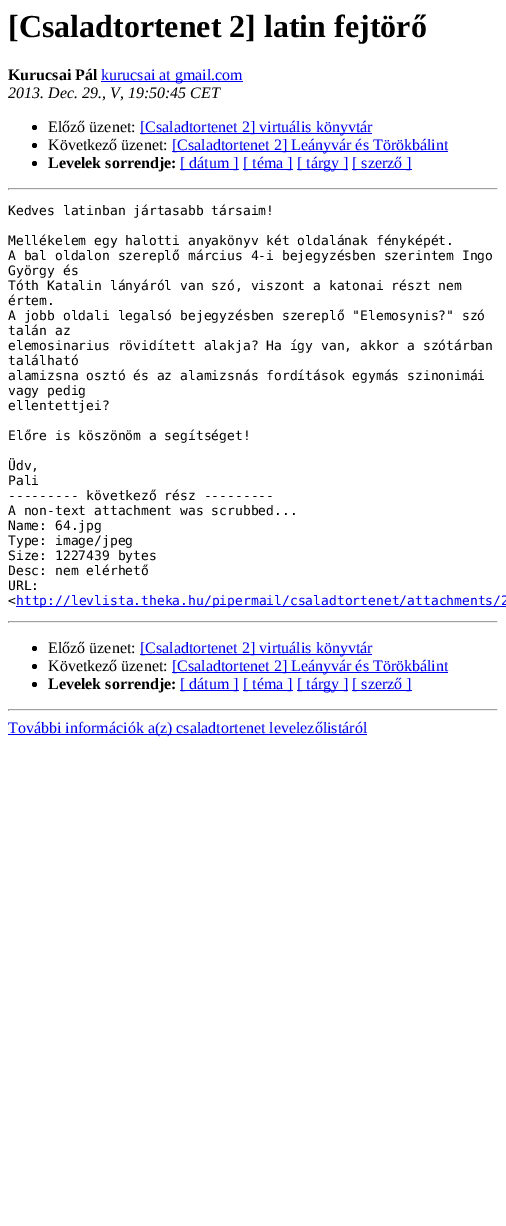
%!PS
<< /PageSize [506 1226] >> setpagedevice
/rgb { 3 { 255 div 3 1 roll } repeat setrgbcolor } def
/font { [ exch dup neg 0 0 3 -1 roll 0 0 ] selectfont } def
/text { moveto show } def
/circle { newpath 0 360 arc closepath } def
0 1226 translate 1 -1 scale
4 setmiterlimit
255 255 255 rgb
0 0 506 1226 rectfill
0 0 238 rgb
101 81 142 1 rectfill
0 0 0 rgb
34.5 127.5 2.5 circle fill
0 0 238 rgb
140 133 232 1 rectfill
0 0 0 rgb
34.5 145.5 2.5 circle fill
0 0 238 rgb
172 151 276 1 rectfill
0 0 0 rgb
34.5 163.5 2.5 circle fill
0 0 238 rgb
180 169 59 1 rectfill
243 169 50 1 rectfill
297 169 51 1 rectfill
352 169 60 1 rectfill
159 159 159 rgb
8 188 490 1 rectfill
238 238 238 rgb
497 188 1 2 rectfill
8 189 490 1 rectfill
159 159 159 rgb
8 188 1 2 rectfill
0 0 238 rgb
16 606 490 1 rectfill
159 159 159 rgb
8 621 490 1 rectfill
238 238 238 rgb
497 621 1 2 rectfill
8 622 490 1 rectfill
159 159 159 rgb
8 621 1 2 rectfill
0 0 0 rgb
34.5 648.5 2.5 circle fill
0 0 238 rgb
140 654 232 1 rectfill
0 0 0 rgb
34.5 666.5 2.5 circle fill
0 0 238 rgb
172 672 276 1 rectfill
0 0 0 rgb
34.5 684.5 2.5 circle fill
0 0 238 rgb
180 690 59 1 rectfill
243 690 50 1 rectfill
297 690 51 1 rectfill
352 690 60 1 rectfill
159 159 159 rgb
8 709 490 1 rectfill
238 238 238 rgb
497 709 1 2 rectfill
8 710 490 1 rectfill
159 159 159 rgb
8 709 1 2 rectfill
0 0 238 rgb
8 734 359 1 rectfill
/LiberationSerif-Bold 32 font
0 0 0 rgb
([Csaladtortenet 2] latin fejtörő) 8 37 text
/LiberationSerif-Bold 16 font
(Kurucsai Pál) 8 80 text
/LiberationSerif-Regular 16 font
0 0 238 rgb
(kurucsai at gmail.com) 101 80 text
/LiberationSerif-Italic 16 font
0 0 0 rgb
(2013. Dec. 29., V, 19:50:45 CET) 8 98 text
/LiberationSerif-Regular 16 font
(Előző üzenet:) 48 132 text
0 0 238 rgb
([Csaladtortenet 2] virtuális könyvtár) 140 132 text
0 0 0 rgb
(Következő üzenet:) 48 150 text
0 0 238 rgb
([Csaladtortenet 2] Leányvár és Törökbálint) 172 150 text
/LiberationSerif-Bold 16 font
0 0 0 rgb
(Levelek sorrendje:) 48 168 text
/LiberationSerif-Regular 16 font
0 0 238 rgb
([ dátum ]) 180 168 text
([ téma ]) 243 168 text
([ tárgy ]) 297 168 text
([ szerző ]) 352 168 text
/DejaVuSansMono-Regular 13 font
0 0 0 rgb
(Kedves latinban jártasabb társaim!) 8 215 text
(Mellékelem egy halotti anyakönyv két oldalának fényképét.) 8 245 text
(A bal oldalon szereplő március 4-i bejegyzésben szerintem Ingo) 8 260 text
(György és) 8 275 text
(Tóth Katalin lányáról van szó, viszont a katonai részt nem) 8 290 text
(értem.) 8 305 text
(A jobb oldali legalsó bejegyzésben szereplő "Elemosynis?" szó) 8 320 text
(talán az) 8 335 text
(elemosinarius rövidített alakja? Ha így van, akkor a szótárban) 8 350 text
(található) 8 365 text
(alamizsna osztó és az alamizsnás fordítások egymás szinonimái) 8 380 text
(vagy pedig) 8 395 text
(ellentettjei?) 8 410 text
(Előre is köszönöm a segítséget!) 8 440 text
(Üdv,) 8 470 text
(Pali) 8 485 text
(--------- következő rész ---------) 8 500 text
(A non-text attachment was scrubbed...) 8 515 text
(Name: 64.jpg) 8 530 text
(Type: image/jpeg) 8 545 text
(Size: 1227439 bytes) 8 560 text
(Desc: nem elérhető) 8 575 text
(URL:) 8 590 text
(<) 8 605 text
0 0 238 rgb
(http://levlista.theka.hu/pipermail/csaladtortenet/attachments/2) 16 605 text
/LiberationSerif-Regular 16 font
0 0 0 rgb
(Előző üzenet:) 48 653 text
0 0 238 rgb
([Csaladtortenet 2] virtuális könyvtár) 140 653 text
0 0 0 rgb
(Következő üzenet:) 48 671 text
0 0 238 rgb
([Csaladtortenet 2] Leányvár és Törökbálint) 172 671 text
/LiberationSerif-Bold 16 font
0 0 0 rgb
(Levelek sorrendje:) 48 689 text
/LiberationSerif-Regular 16 font
0 0 238 rgb
([ dátum ]) 180 689 text
([ téma ]) 243 689 text
([ tárgy ]) 297 689 text
([ szerző ]) 352 689 text
(További információk a\(z\) csaladtortenet levelezőlistáról) 8 733 text
showpage
